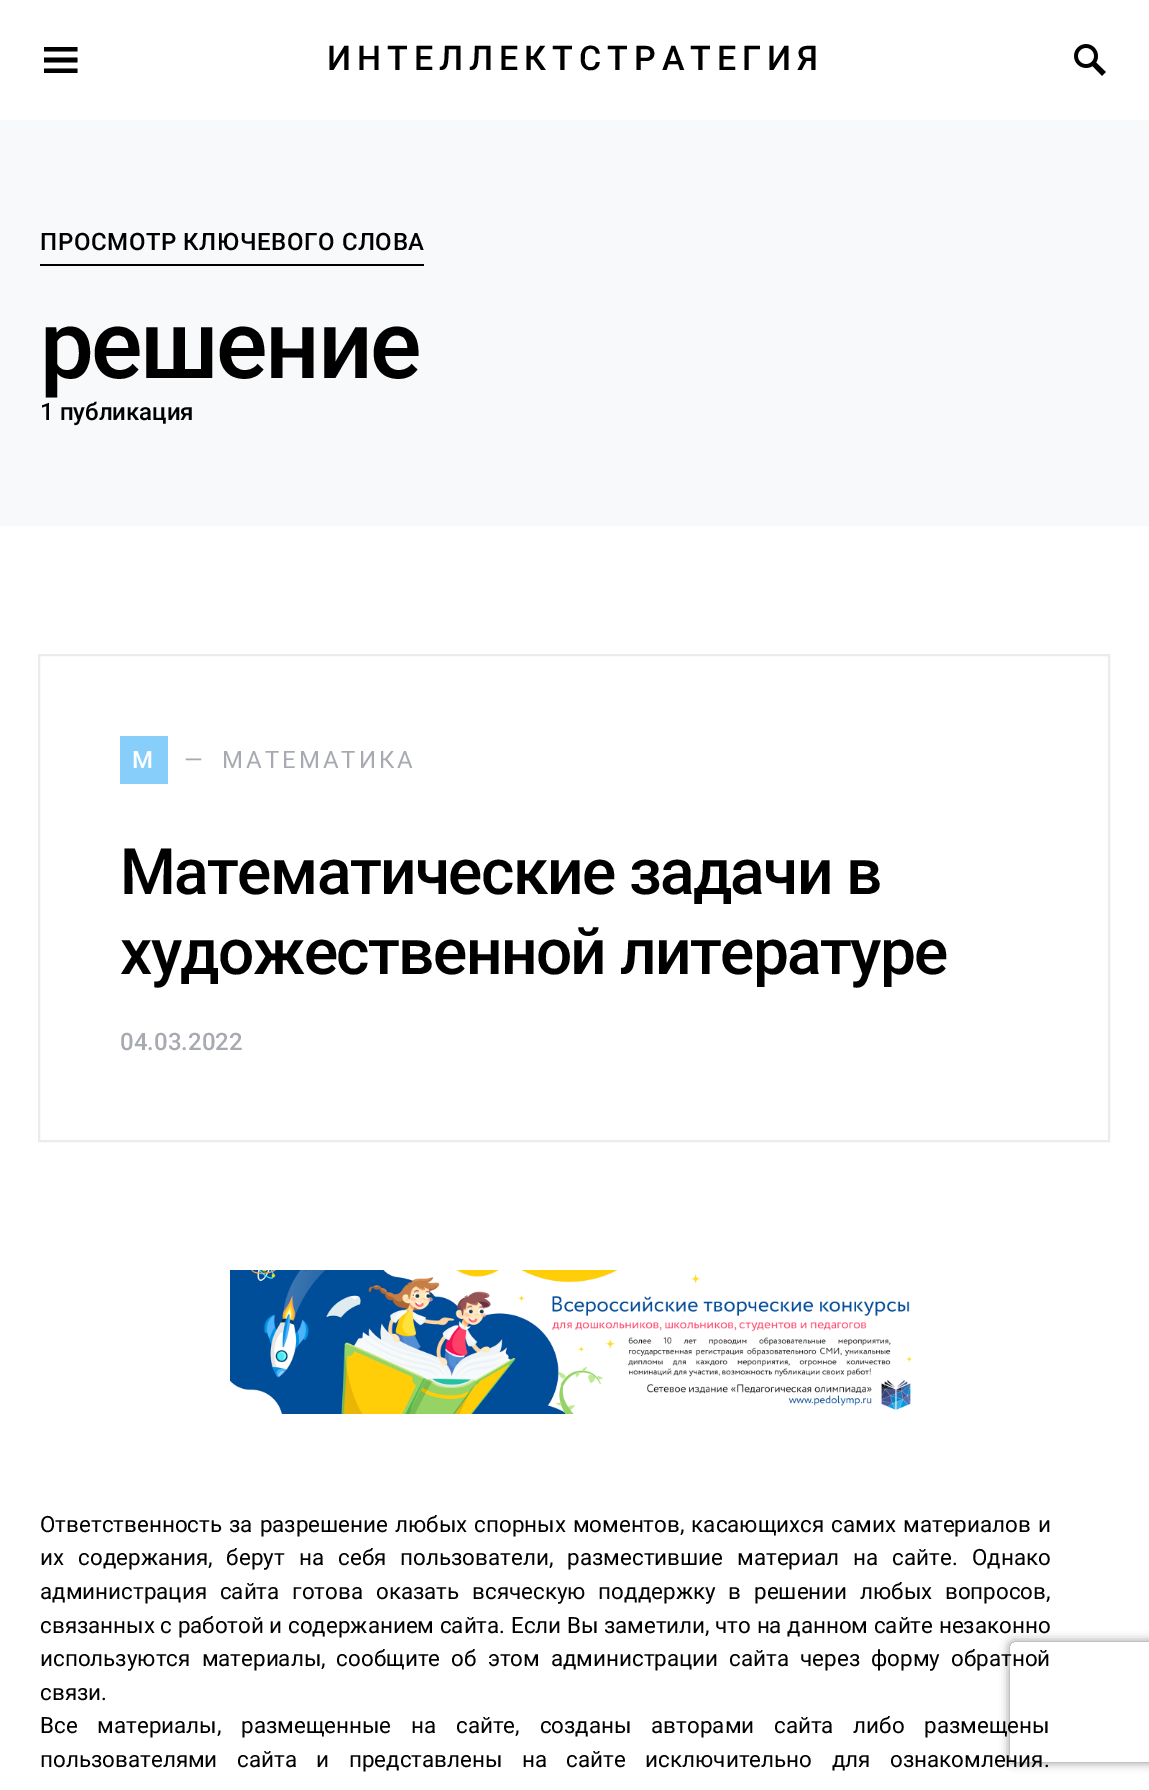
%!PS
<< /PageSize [1149 1790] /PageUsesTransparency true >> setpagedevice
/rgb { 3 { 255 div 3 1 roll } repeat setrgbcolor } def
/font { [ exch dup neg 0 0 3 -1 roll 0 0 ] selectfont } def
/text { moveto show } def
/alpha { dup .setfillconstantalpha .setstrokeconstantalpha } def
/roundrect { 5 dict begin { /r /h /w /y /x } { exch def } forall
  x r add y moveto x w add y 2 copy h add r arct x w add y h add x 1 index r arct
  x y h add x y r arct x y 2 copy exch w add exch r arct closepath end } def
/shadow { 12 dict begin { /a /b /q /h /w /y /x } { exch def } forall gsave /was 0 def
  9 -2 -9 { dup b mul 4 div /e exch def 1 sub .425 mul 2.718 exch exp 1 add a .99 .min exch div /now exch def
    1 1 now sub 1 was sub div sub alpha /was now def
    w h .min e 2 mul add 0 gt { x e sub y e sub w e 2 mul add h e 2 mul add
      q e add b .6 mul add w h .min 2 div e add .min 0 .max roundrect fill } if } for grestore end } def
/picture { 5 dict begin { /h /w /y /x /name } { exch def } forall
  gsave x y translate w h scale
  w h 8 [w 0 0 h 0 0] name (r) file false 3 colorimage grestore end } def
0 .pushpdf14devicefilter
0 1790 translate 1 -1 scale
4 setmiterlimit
255 255 255 rgb
0 0 1149 1790 rectfill
0 0 0 rgb
44 47 moveto 33.5 0 rlineto 0 4.5 rlineto -33.5 0 rlineto closepath 44 57.5 moveto 33.5 0 rlineto 0 5 rlineto -33.5 0 rlineto closepath 44 68.5 moveto 33.5 0 rlineto 0 4.5 rlineto -33.5 0 rlineto closepath fill
(img_01.rgb) 1074 44 32 32 picture
248 249 250 rgb
0 120 1149 406 rectfill
0 0 0 rgb
40 264 384 2 rectfill
233 236 239 rgb
2 setlinewidth
39 655 1070 486 rectstroke
135 206 250 rgb
120 736 48 48 rectfill
(img_02.rgb) 230 1270 683 144 picture
gsave
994 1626 moveto 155 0 rlineto 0 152 rlineto -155 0 rlineto closepath 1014 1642 moveto 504 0 rlineto 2 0 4 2 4 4 rcurveto 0 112 rlineto 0 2 -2 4 -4 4 rcurveto -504 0 rlineto -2 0 -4 -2 -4 -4 rcurveto 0 -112 rlineto 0 -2 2 -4 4 -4 rcurveto closepath eoclip newpath
128 128 128 rgb
1010 1642 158 120 4 5 1 shadow
grestore
/Roboto-Medium 34 font
0 0 0 rgb
327 70 moveto 6 0 (ИНТЕЛЛЕКТСТРАТЕГИЯ) ashow
/Roboto-Medium 24 font
40 250 moveto 0.6 0 (ПРОСМОТР КЛЮЧЕВОГО СЛОВА) ashow
/Roboto-Medium 96 font
40 378 moveto -2.5 0 (решение) ashow
/Roboto-Medium 24 font
(1 публикация) 40 420 text
255 255 255 rgb
132 768 moveto 3 0 (М) ashow
/Roboto-Regular 24 font
168 170 178 rgb
184 768 moveto 3 0 (—) ashow
222 768 moveto 3 0 (МАТЕМАТИКА) ashow
/Roboto-Medium 64 font
0 0 0 rgb
120 894 moveto -1.6 0 (Математические задачи в) ashow
120 974 moveto -1.6 0 (художественной литературе) ashow
/Roboto-Medium 24 font
168 170 178 rgb
(04.03.2022) 120 1050 text
/Roboto-Regular 22.4 font
0 0 0 rgb
40 1532 moveto 1.5 0 32 (Ответственность за разрешение любых спорных моментов, касающихся самих материалов и) widthshow
40 1565 moveto 8.5 0 32 (их содержания, берут на себя пользователи, разместившие материал на сайте. Однако) widthshow
40 1599 moveto 7.25 0 32 (администрация сайта готова оказать всяческую поддержку в решении любых вопросов,) widthshow
(связанных с работой и содержанием сайта. Если Вы заметили, что на данном сайте незаконно) 40 1633 text
40 1666 moveto 5.5 0 32 (используются материалы, сообщите об этом администрации сайта через форму обратной) widthshow
(связи.) 40 1700 text
40 1733 moveto 14.25 0 32 (Все материалы, размещенные на сайте, созданы авторами сайта либо размещены) widthshow
40 1767 moveto 14 0 32 (пользователями сайта и представлены на сайте исключительно для ознакомления.) widthshow
.poppdf14devicefilter showpage
